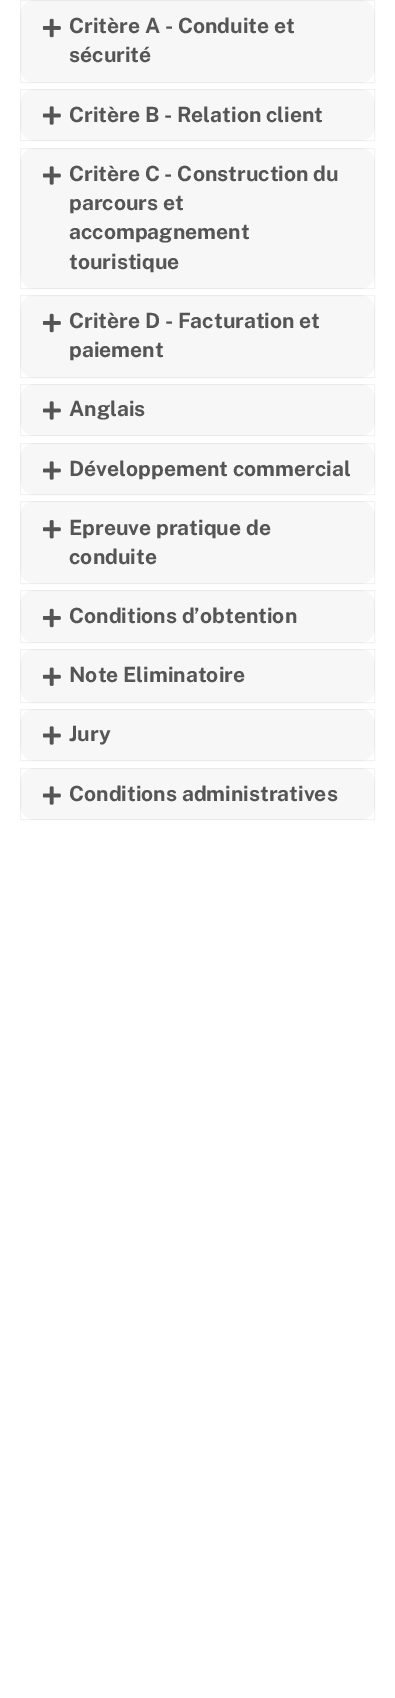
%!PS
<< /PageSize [395 1698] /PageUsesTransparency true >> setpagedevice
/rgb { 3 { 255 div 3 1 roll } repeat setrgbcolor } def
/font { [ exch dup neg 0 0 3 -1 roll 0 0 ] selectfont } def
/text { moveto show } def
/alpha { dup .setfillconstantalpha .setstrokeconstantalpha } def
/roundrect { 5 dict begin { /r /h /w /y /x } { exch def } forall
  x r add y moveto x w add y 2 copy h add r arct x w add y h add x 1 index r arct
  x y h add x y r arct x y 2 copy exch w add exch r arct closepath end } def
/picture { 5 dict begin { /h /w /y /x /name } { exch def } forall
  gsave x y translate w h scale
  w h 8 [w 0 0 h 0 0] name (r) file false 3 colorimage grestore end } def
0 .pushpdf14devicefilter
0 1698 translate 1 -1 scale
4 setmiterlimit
255 255 255 rgb
0 0 395 1698 rectfill
247 247 247 rgb
20 0 355 83 15 roundrect fill
0.05 alpha
0 0 0 rgb
20.5 0.5 354 82 rectstroke
1 alpha
(img_01.rgb) 43 18 18 20 picture
247 247 247 rgb
20 89 355 52 15 roundrect fill
0.05 alpha
0 0 0 rgb
20.5 89.5 354 51 rectstroke
1 alpha
(img_02.rgb) 43 106 18 19 picture
247 247 247 rgb
20 148 355 141 15 roundrect fill
0.05 alpha
0 0 0 rgb
20.5 148.5 354 140 rectstroke
1 alpha
(img_02.rgb) 43 166 18 19 picture
247 247 247 rgb
20 295 355 83 15 roundrect fill
0.05 alpha
0 0 0 rgb
20.5 295.5 354 82 rectstroke
1 alpha
(img_01.rgb) 43 313 18 20 picture
247 247 247 rgb
20 384 355 52 15 roundrect fill
0.05 alpha
0 0 0 rgb
20.5 384.5 354 51 rectstroke
1 alpha
(img_02.rgb) 43 401 18 19 picture
247 247 247 rgb
20 443 355 52 15 roundrect fill
0.05 alpha
0 0 0 rgb
20.5 443.5 354 51 rectstroke
1 alpha
(img_02.rgb) 43 461 18 19 picture
247 247 247 rgb
20 501 355 83 15 roundrect fill
0.05 alpha
0 0 0 rgb
20.5 501.5 354 82 rectstroke
1 alpha
(img_03.rgb) 43 520 18 19 picture
247 247 247 rgb
20 590 355 53 15 roundrect fill
0.05 alpha
0 0 0 rgb
20.5 590.5 354 52 rectstroke
1 alpha
(img_01.rgb) 43 608 18 20 picture
247 247 247 rgb
20 649 355 54 15 roundrect fill
0.05 alpha
0 0 0 rgb
20.5 649.5 354 53 rectstroke
1 alpha
(img_04.rgb) 43 667 18 19 picture
247 247 247 rgb
20 709 355 52 15 roundrect fill
0.05 alpha
0 0 0 rgb
20.5 709.5 354 51 rectstroke
1 alpha
(img_02.rgb) 43 726 18 19 picture
247 247 247 rgb
20 768 355 52 15 roundrect fill
0.05 alpha
0 0 0 rgb
20.5 768.5 354 51 rectstroke
1 alpha
(img_02.rgb) 43 786 18 19 picture
/PublicSans-Bold 21 font
85 85 85 rgb
(Critère A - Conduite et) 69 33 text
(sécurité) 69 62 text
(Critère B - Relation client) 69 122 text
(Critère C - Construction du) 69 181 text
(parcours et) 69 210 text
(accompagnement) 69 239 text
(touristique) 69 269 text
(Critère D - Facturation et) 69 328 text
(paiement) 69 357 text
(Anglais) 69 416 text
(Développement commercial) 69 476 text
(Epreuve pratique de) 69 535 text
(conduite) 69 564 text
(Conditions d’obtention) 69 623 text
(Note Eliminatoire) 69 682 text
(Jury) 69 741 text
(Conditions administratives) 69 801 text
.poppdf14devicefilter showpage
